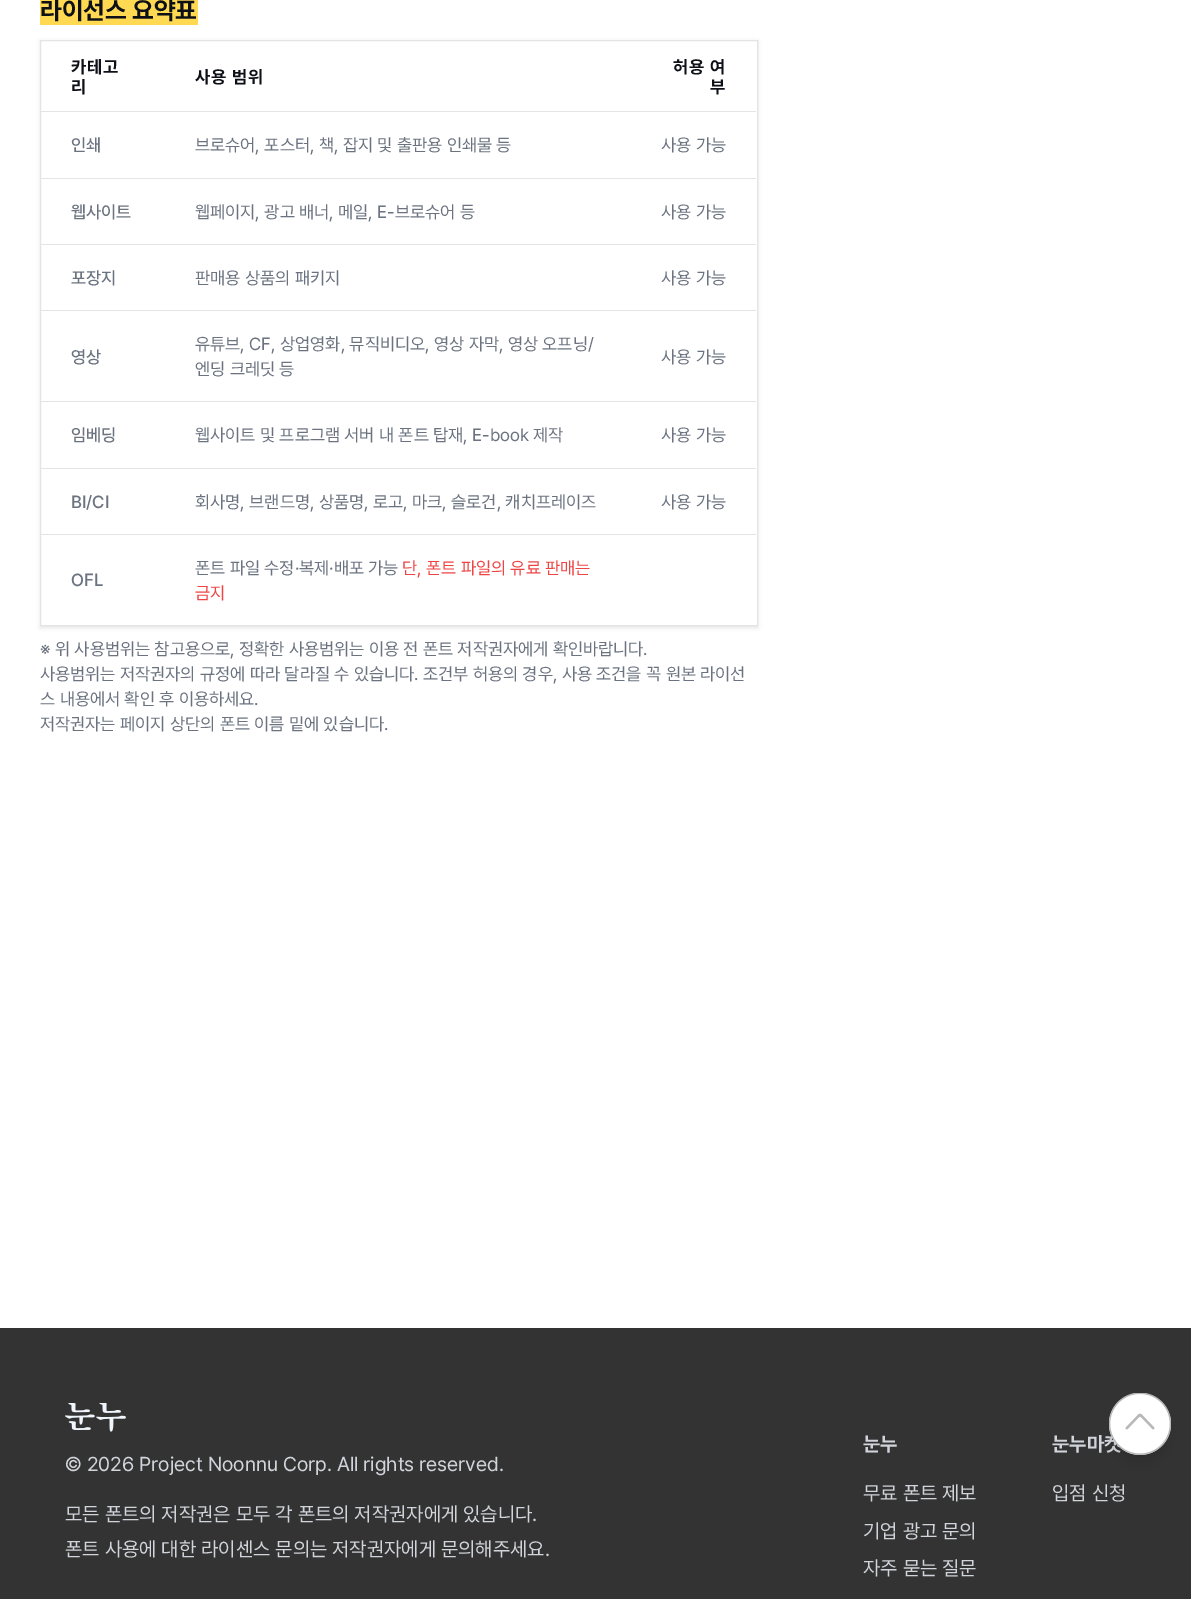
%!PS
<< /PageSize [1191 1599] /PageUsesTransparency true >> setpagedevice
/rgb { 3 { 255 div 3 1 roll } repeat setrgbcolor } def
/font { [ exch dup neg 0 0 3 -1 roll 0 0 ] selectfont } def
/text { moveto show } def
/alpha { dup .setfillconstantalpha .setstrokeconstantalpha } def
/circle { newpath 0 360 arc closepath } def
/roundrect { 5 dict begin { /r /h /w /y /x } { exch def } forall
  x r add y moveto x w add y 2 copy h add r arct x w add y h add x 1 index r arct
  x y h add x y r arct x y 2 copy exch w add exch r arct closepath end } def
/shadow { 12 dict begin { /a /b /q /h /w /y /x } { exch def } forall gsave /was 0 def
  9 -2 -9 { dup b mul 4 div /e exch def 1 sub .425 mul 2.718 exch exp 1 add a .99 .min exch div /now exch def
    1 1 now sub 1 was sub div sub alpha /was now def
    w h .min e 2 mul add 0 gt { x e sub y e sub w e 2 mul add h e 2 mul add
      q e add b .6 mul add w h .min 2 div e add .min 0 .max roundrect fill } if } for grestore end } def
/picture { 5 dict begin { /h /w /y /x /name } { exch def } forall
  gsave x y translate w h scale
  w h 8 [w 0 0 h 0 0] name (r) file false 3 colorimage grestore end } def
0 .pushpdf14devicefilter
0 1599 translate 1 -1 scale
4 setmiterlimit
255 255 255 rgb
0 0 1191 1599 rectfill
255 217 81 rgb
40 0 158 25 rectfill
gsave
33 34 moveto 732 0 rlineto 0 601 rlineto -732 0 rlineto closepath 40 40 moveto 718 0 rlineto 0 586 rlineto -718 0 rlineto closepath eoclip newpath
0 0 0 rgb
40 41 718 587 0 2 0.1 shadow
grestore
228 228 231 rgb
40.5 40.5 717 585 rectstroke
41 111 715 1 rectfill
41 178 715 1 rectfill
41 244 715 1 rectfill
41 310 715 1 rectfill
41 401 715 1 rectfill
41 468 715 1 rectfill
41 534 715 1 rectfill
51 51 51 rgb
0 1328 1191 271 rectfill
0 0 0 rgb
1111 1400 58 58 29 4 0.05 shadow
1113 1409 55 55 27.5 9.5 0.1 shadow
(img_02.rgb) 65 1403 61 29 picture
/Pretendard-Bold 25 font
13 17 23 rgb
(라이선스 요약표) 40 19 text
/Pretendard-Bold 17.5 font
71 73 moveto 1 0 (카테고) ashow
71 93 moveto 1 0 (리) ashow
195 83 moveto 1 0 (사용 범위) ashow
673 73 moveto 1 0 (허용 여) ashow
710 93 moveto 1 0 (부) ashow
/Pretendard-Medium 17.5 font
107 114 128 rgb
(인쇄) 71 151 text
/Pretendard-Regular 17.5 font
(브로슈어, 포스터, 책, 잡지 및 출판용 인쇄물 등) 195 151 text
(사용 가능) 661 151 text
/Pretendard-Medium 17.5 font
(웹사이트) 71 218 text
/Pretendard-Regular 17.5 font
(웹페이지, 광고 배너, 메일, E-브로슈어 등) 195 218 text
(사용 가능) 661 218 text
/Pretendard-Medium 17.5 font
(포장지) 71 284 text
/Pretendard-Regular 17.5 font
(판매용 상품의 패키지) 195 284 text
(사용 가능) 661 284 text
/Pretendard-Medium 17.5 font
(영상) 71 363 text
/Pretendard-Regular 17.5 font
(유튜브, CF, 상업영화, 뮤직비디오, 영상 자막, 영상 오프닝/) 195 350 text
(엔딩 크레딧 등) 195 375 text
(사용 가능) 661 363 text
/Pretendard-Medium 17.5 font
(임베딩) 71 441 text
/Pretendard-Regular 17.5 font
(웹사이트 및 프로그램 서버 내 폰트 탑재, E-book 제작) 195 441 text
(사용 가능) 661 441 text
/Pretendard-Medium 17.5 font
(BI/CI) 71 508 text
/Pretendard-Regular 17.5 font
(회사명, 브랜드명, 상품명, 로고, 마크, 슬로건, 캐치프레이즈) 195 508 text
(사용 가능) 661 508 text
/Pretendard-Medium 17.5 font
(OFL) 71 586 text
/Pretendard-Regular 17.5 font
(폰트 파일 수정·복제·배포 가능) 195 574 text
239 68 68 rgb
(단, 폰트 파일의 유료 판매는) 402 574 text
(금지) 195 599 text
107 114 128 rgb
(※ 위 사용범위는 참고용으로, 정확한 사용범위는 이용 전 폰트 저작권자에게 확인바랍니다.) 40 655 text
(사용범위는 저작권자의 규정에 따라 달라질 수 있습니다. 조건부 허용의 경우, 사용 조건을 꼭 원본 라이선) 40 680 text
(스 내용에서 확인 후 이용하세요.) 40 705 text
(저작권자는 페이지 상단의 폰트 이름 밑에 있습니다.) 40 730 text
/Pretendard-Regular 20 font
209 213 219 rgb
(© 2026 Project Noonnu Corp. All rights reserved.) 65 1471 text
(모든 폰트의 저작권은 모두 각 폰트의 저작권자에게 있습니다.) 65 1521 text
(폰트 사용에 대한 라이센스 문의는 저작권자에게 문의해주세요.) 65 1556 text
/Pretendard-Bold 20 font
(눈누) 863 1451 text
/Pretendard-Regular 20 font
(무료 폰트 제보) 863 1500 text
(기업 광고 문의) 863 1538 text
(자주 묻는 질문) 863 1575 text
/Pretendard-Bold 20 font
(눈누마켓) 1052 1451 text
255 255 255 rgb
1140 1424 31 circle fill
(img_01.rgb) 1109 1393 62 62 picture
/Pretendard-Regular 20 font
209 213 219 rgb
(입점 신청) 1052 1500 text
.poppdf14devicefilter showpage
